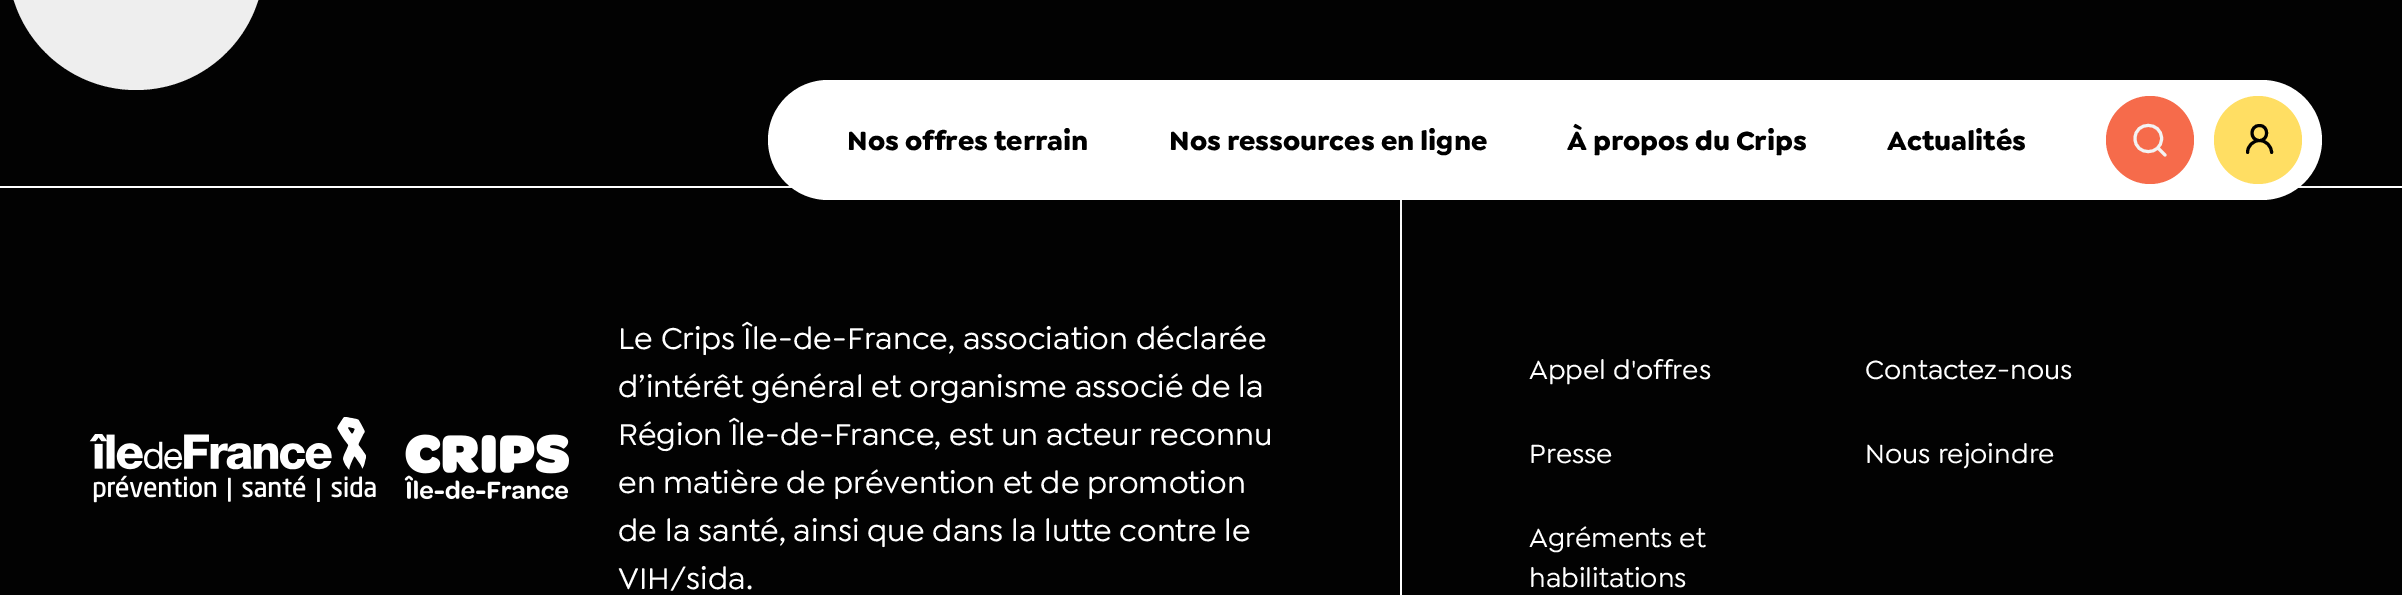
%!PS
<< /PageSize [2402 595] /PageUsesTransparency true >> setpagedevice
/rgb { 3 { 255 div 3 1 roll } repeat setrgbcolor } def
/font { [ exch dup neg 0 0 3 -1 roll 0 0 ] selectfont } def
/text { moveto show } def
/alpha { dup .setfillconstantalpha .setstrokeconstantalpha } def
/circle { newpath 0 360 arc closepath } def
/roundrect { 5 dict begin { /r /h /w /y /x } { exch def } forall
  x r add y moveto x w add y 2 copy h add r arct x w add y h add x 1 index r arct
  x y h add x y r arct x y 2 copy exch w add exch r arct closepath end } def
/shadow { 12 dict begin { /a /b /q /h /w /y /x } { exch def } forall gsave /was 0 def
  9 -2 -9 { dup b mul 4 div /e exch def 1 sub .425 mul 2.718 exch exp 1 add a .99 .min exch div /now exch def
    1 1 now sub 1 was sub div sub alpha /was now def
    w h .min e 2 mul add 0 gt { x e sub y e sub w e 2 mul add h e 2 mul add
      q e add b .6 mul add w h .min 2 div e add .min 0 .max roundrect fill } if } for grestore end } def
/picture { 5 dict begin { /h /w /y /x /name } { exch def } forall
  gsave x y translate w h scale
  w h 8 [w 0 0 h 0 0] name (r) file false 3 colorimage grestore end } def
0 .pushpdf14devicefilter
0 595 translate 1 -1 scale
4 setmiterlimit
2 2 2 rgb
0 0 2402 595 rectfill
255 255 255 rgb
0 186 2402 2 rectfill
1400 200 2 395 rectfill
0 0 0 rgb
768 100 1554 120 60 20 0.05 shadow
255 255 255 rgb
768 80 1554 120 60 roundrect fill
246 107 75 rgb
2150 140 44 circle fill
243 243 243 rgb
3 setlinewidth
1 setlinecap
1 setlinejoin
2165 155 moveto -7 -7 rlineto 2161.5 138.5 moveto 0 17.5 -26.5 17.5 -26.5 0 rcurveto 0 -17.5 26.5 -17.5 26.5 0 rcurveto closepath stroke
255 222 99 rgb
2258 140 44 circle fill
0 0 0 rgb
2259.5 140.5 moveto 9.5 0 9.5 -15 0 -15 rcurveto -10 0 -10 15 0 15 rcurveto closepath 2259.5 140.5 moveto 6.5 0 12 5.5 12 12 rcurveto 2259.5 140.5 moveto -6.5 0 -12 5.5 -12 12 rcurveto stroke
238 238 238 rgb
8 -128 256 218 128 roundrect fill
(img_01.rgb) 89 417 287 86 picture
(img_02.rgb) 404 434 165 66 picture
/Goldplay-Bold 28 font
0 0 0 rgb
(Nos offres terrain) 847 150 text
(Nos ressources en ligne) 1169 150 text
(À propos du Crips) 1567 150 text
(Actualités) 1887 150 text
/Goldplay-Medium 32 font
255 255 255 rgb
(Le Crips Île-de-France, association déclarée) 618 349 text
(d’intérêt général et organisme associé de la) 618 397 text
(Région Île-de-France, est un acteur reconnu) 618 445 text
(en matière de prévention et de promotion) 618 493 text
(de la santé, ainsi que dans la lutte contre le) 618 541 text
(VIH/sida.) 618 589 text
/Goldplay-Medium 28 font
(Appel d'offres) 1529 379 text
(Contactez-nous) 1865 379 text
(Presse) 1529 463 text
(Nous rejoindre) 1865 463 text
(Agréments et) 1529 547 text
(habilitations) 1529 587 text
.poppdf14devicefilter showpage
